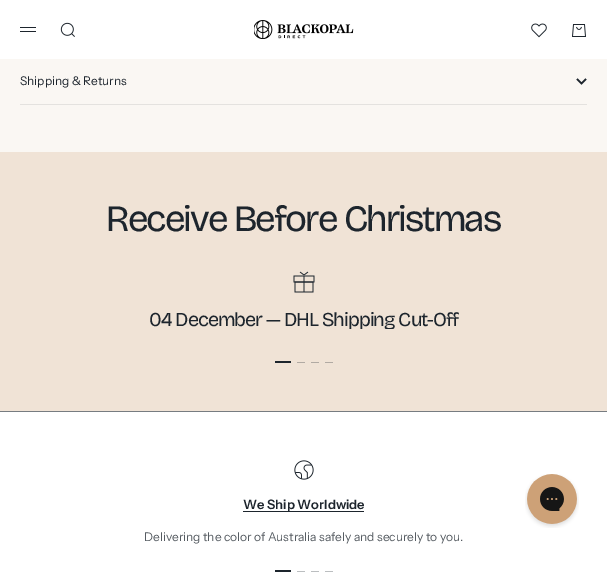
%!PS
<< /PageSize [607 576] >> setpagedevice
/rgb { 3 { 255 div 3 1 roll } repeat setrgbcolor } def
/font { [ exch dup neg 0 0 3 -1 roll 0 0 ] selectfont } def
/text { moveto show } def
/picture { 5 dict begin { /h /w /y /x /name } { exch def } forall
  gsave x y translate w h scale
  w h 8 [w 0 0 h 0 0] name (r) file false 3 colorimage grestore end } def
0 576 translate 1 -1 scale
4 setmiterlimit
255 255 255 rgb
0 0 607 576 rectfill
29 37 45 rgb
20 27 16 1 rectfill
20 31 16 1 rectfill
(img_01.rgb) 60 22 15 15 picture
(img_02.rgb) 254 20 100 19 picture
(img_03.rgb) 531 23 16 15 picture
(img_04.rgb) 572 24 14 13 picture
250 247 243 rgb
0 59 607 93 rectfill
228 226 223 rgb
20 104 567 1 rectfill
29 37 45 rgb
1.5 setlinewidth
586 79 moveto -4.5 4.5 rlineto -4.5 -4.5 rlineto stroke
240 227 214 rgb
0 152 607 259 rectfill
(img_05.rgb) 293 271 22 22 picture
29 37 45 rgb
275 361 16 2 rectfill
177 170 163 rgb
297 362 8 1 rectfill
311 362 8 1 rectfill
325 362 8 1 rectfill
119 124 129 rgb
0 411 607 1 rectfill
(img_06.rgb) 294 460 20 20 picture
29 37 45 rgb
243 511 121 1 rectfill
275 570 16 2 rectfill
187 190 192 rgb
297 571 8 1 rectfill
311 571 8 1 rectfill
325 571 8 1 rectfill
(img_07.rgb) 525 474 54 54 picture
/InstrumentSans-Regular 12 font
29 37 45 rgb
(Shipping & Returns) 20 85 text
/BricolageGrotesque-Regular 37.25 font
106 231 moveto -1.9 0 (Receive Before Christmas) ashow
gsave
0 270 607 59 rectclip
/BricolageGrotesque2-Regular 19.75 font
149 326 moveto -1 0 (04 December — DHL Shipping Cut-Off) ashow
grestore
/InstrumentSans-SemiBold 13 font
(We Ship Worldwide) 243 509 text
/InstrumentSans-Regular 12 font
86 92 98 rgb
(Delivering the color of Australia safely and securely to you.) 144 541 text
showpage
